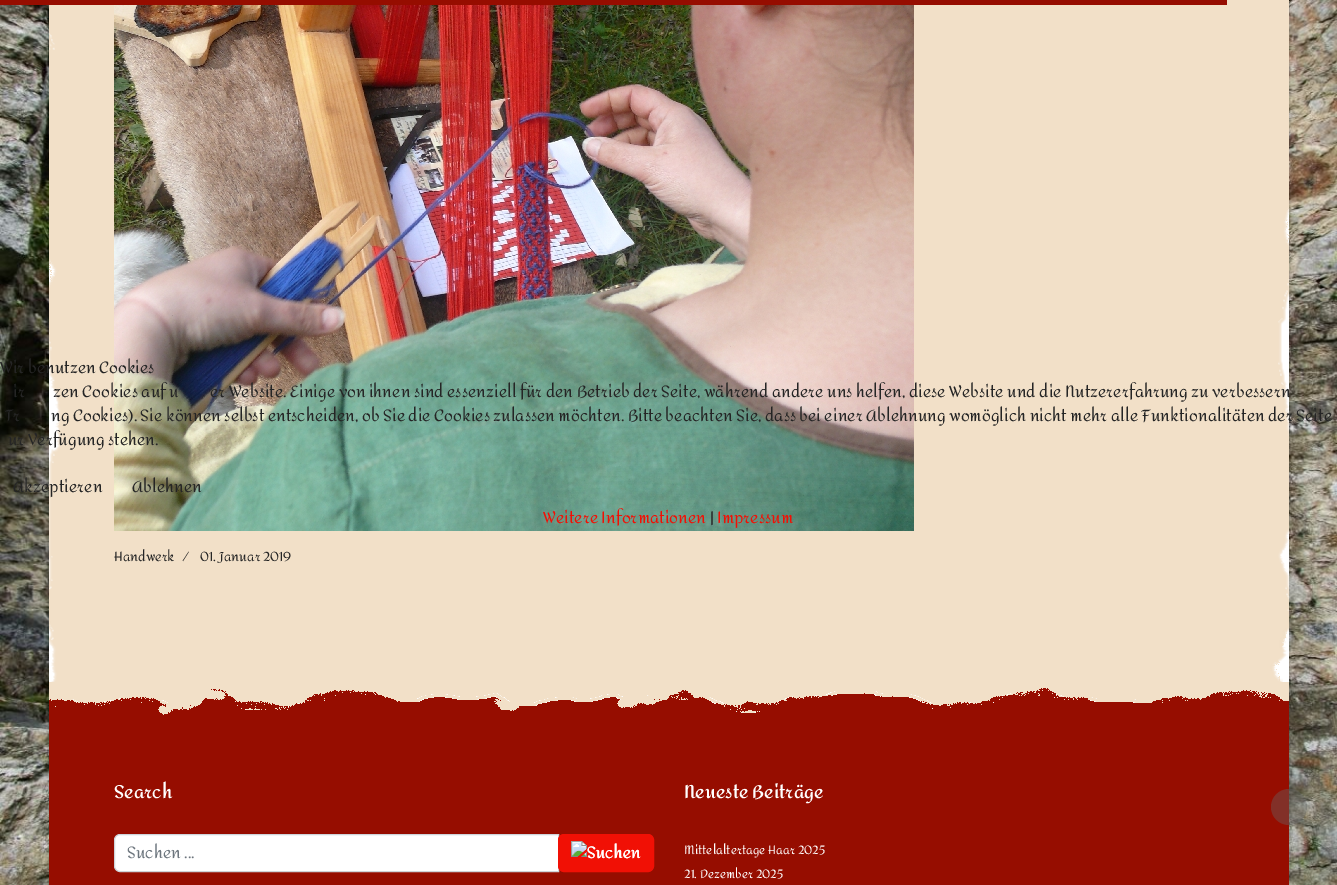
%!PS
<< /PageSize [1337 885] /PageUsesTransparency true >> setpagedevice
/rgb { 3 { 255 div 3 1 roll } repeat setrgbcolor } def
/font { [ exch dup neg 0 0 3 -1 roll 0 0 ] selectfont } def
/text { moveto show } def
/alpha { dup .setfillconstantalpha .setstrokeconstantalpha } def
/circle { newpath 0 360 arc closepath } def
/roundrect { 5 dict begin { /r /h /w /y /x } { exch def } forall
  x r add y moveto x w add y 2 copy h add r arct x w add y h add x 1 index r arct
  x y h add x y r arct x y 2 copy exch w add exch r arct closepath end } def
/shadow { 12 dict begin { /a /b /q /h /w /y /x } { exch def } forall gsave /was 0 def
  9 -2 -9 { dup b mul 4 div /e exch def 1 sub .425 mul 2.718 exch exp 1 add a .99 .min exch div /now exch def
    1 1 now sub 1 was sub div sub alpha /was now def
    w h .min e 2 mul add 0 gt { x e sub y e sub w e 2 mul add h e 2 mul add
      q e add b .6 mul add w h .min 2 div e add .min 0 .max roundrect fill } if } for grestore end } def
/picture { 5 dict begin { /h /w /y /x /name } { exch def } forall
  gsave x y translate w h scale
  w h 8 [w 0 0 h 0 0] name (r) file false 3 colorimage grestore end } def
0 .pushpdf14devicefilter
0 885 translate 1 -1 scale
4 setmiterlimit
255 255 255 rgb
0 0 1337 885 rectfill
(img_01.rgb) 0 0 1337 885 picture
0 0 0 rgb
49 -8 1240 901 0 2.5 0.2 shadow
242 224 200 rgb
49 0 1240 688 rectfill
150 13 0 rgb
0 0 1227 5 rectfill
(img_02.rgb) 49 8 1240 674 picture
(img_03.rgb) 114 5 800 526 picture
(img_04.rgb) 49 688 1240 34 picture
49 722 1240 163 rectfill
255 255 255 rgb
120 834.5 moveto 438.5 0 rlineto 0 37 rlineto -438.5 0 rlineto -3 0 -5.5 -2.5 -5.5 -5.5 rcurveto 0 -26 rlineto 0 -3 2.5 -5.5 5.5 -5.5 rcurveto closepath gsave fill grestore
206 212 218 rgb
stroke
241 16 5 rgb
558.5 834.5 95 37 5.5 roundrect gsave fill grestore
stroke
(img_05.rgb) 571 841 70 18 picture
0.4 alpha
100 100 100 rgb
1289 807 18 circle fill
/Amita-Regular 16 font
1 alpha
37 37 37 rgb
(Wir benutzen Cookies) 0 373 text
(ir) 13 397 text
(zen Cookies auf u) 53 397 text
(er Website. Einige von ihnen sind essenziell für den Betrieb der Seite, während andere uns helfen, diese Website und die Nutzererfahrung zu verbessern) 210 397 text
(Tr) 5 421 text
(ng Cookies\). Sie können selbst entscheiden, ob Sie die Cookies zulassen möchten. Bitte beachten Sie, dass bei einer Ablehnung womöglich nicht mehr alle Funktionalitäten der Seite) 51 421 text
(ur Verfügung stehen.) 8 445 text
(Akzeptieren) 13 492 text
(Ablehnen) 132 492 text
241 16 5 rgb
(Weitere Informationen) 543 523 text
37 37 37 rgb
(|) 710 523 text
241 16 5 rgb
(Impressum) 717 523 text
/Amita-Regular 13 font
37 37 37 rgb
(Handwerk) 114 561 text
(/) 182 561 text
(01. Januar 2019) 200 561 text
/Amita-Bold 18 font
255 255 255 rgb
(Search) 114 798 text
/Amita-Regular 16 font
108 117 125 rgb
(Suchen ...) 127 858 text
255 255 255 rgb
(Suchen) 587 858 text
/Amita-Bold 18 font
(Neueste Beiträge) 684 798 text
/Amita-Regular 11.9 font
(Mittelaltertage Haar 2025) 684 854 text
(21. Dezember 2025) 684 878 text
.poppdf14devicefilter showpage
